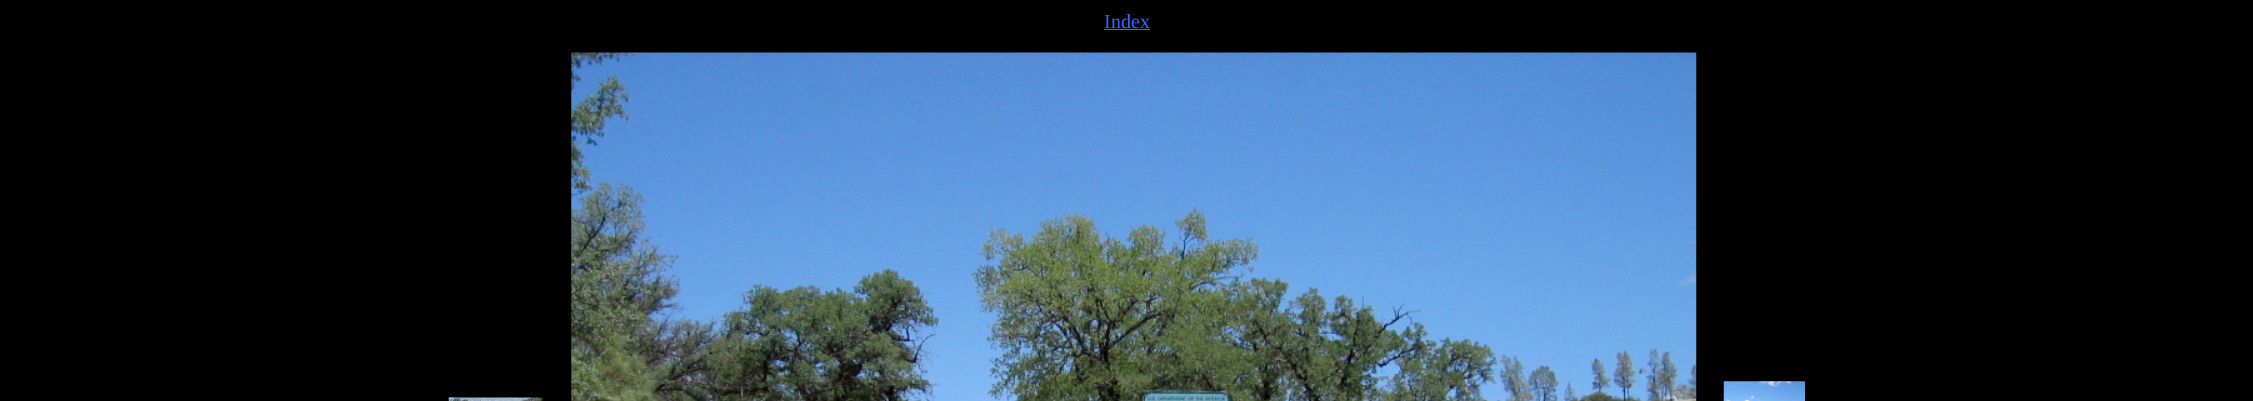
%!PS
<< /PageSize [2253 401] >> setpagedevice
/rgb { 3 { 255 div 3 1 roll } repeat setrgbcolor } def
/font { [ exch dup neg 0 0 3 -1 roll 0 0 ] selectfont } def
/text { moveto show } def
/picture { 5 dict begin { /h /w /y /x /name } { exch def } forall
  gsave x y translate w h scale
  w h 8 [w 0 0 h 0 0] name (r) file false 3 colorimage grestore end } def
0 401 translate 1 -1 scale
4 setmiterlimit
0 0 0 rgb
0 0 2253 401 rectfill
51 102 255 rgb
1104 29 46 1 rectfill
(img_01.rgb) 448 397 95 4 picture
(img_02.rgb) 571 52 1126 349 picture
(img_03.rgb) 1723 381 82 20 picture
/LiberationSerif-Regular 20 font
(Index) 1104 28 text
showpage
